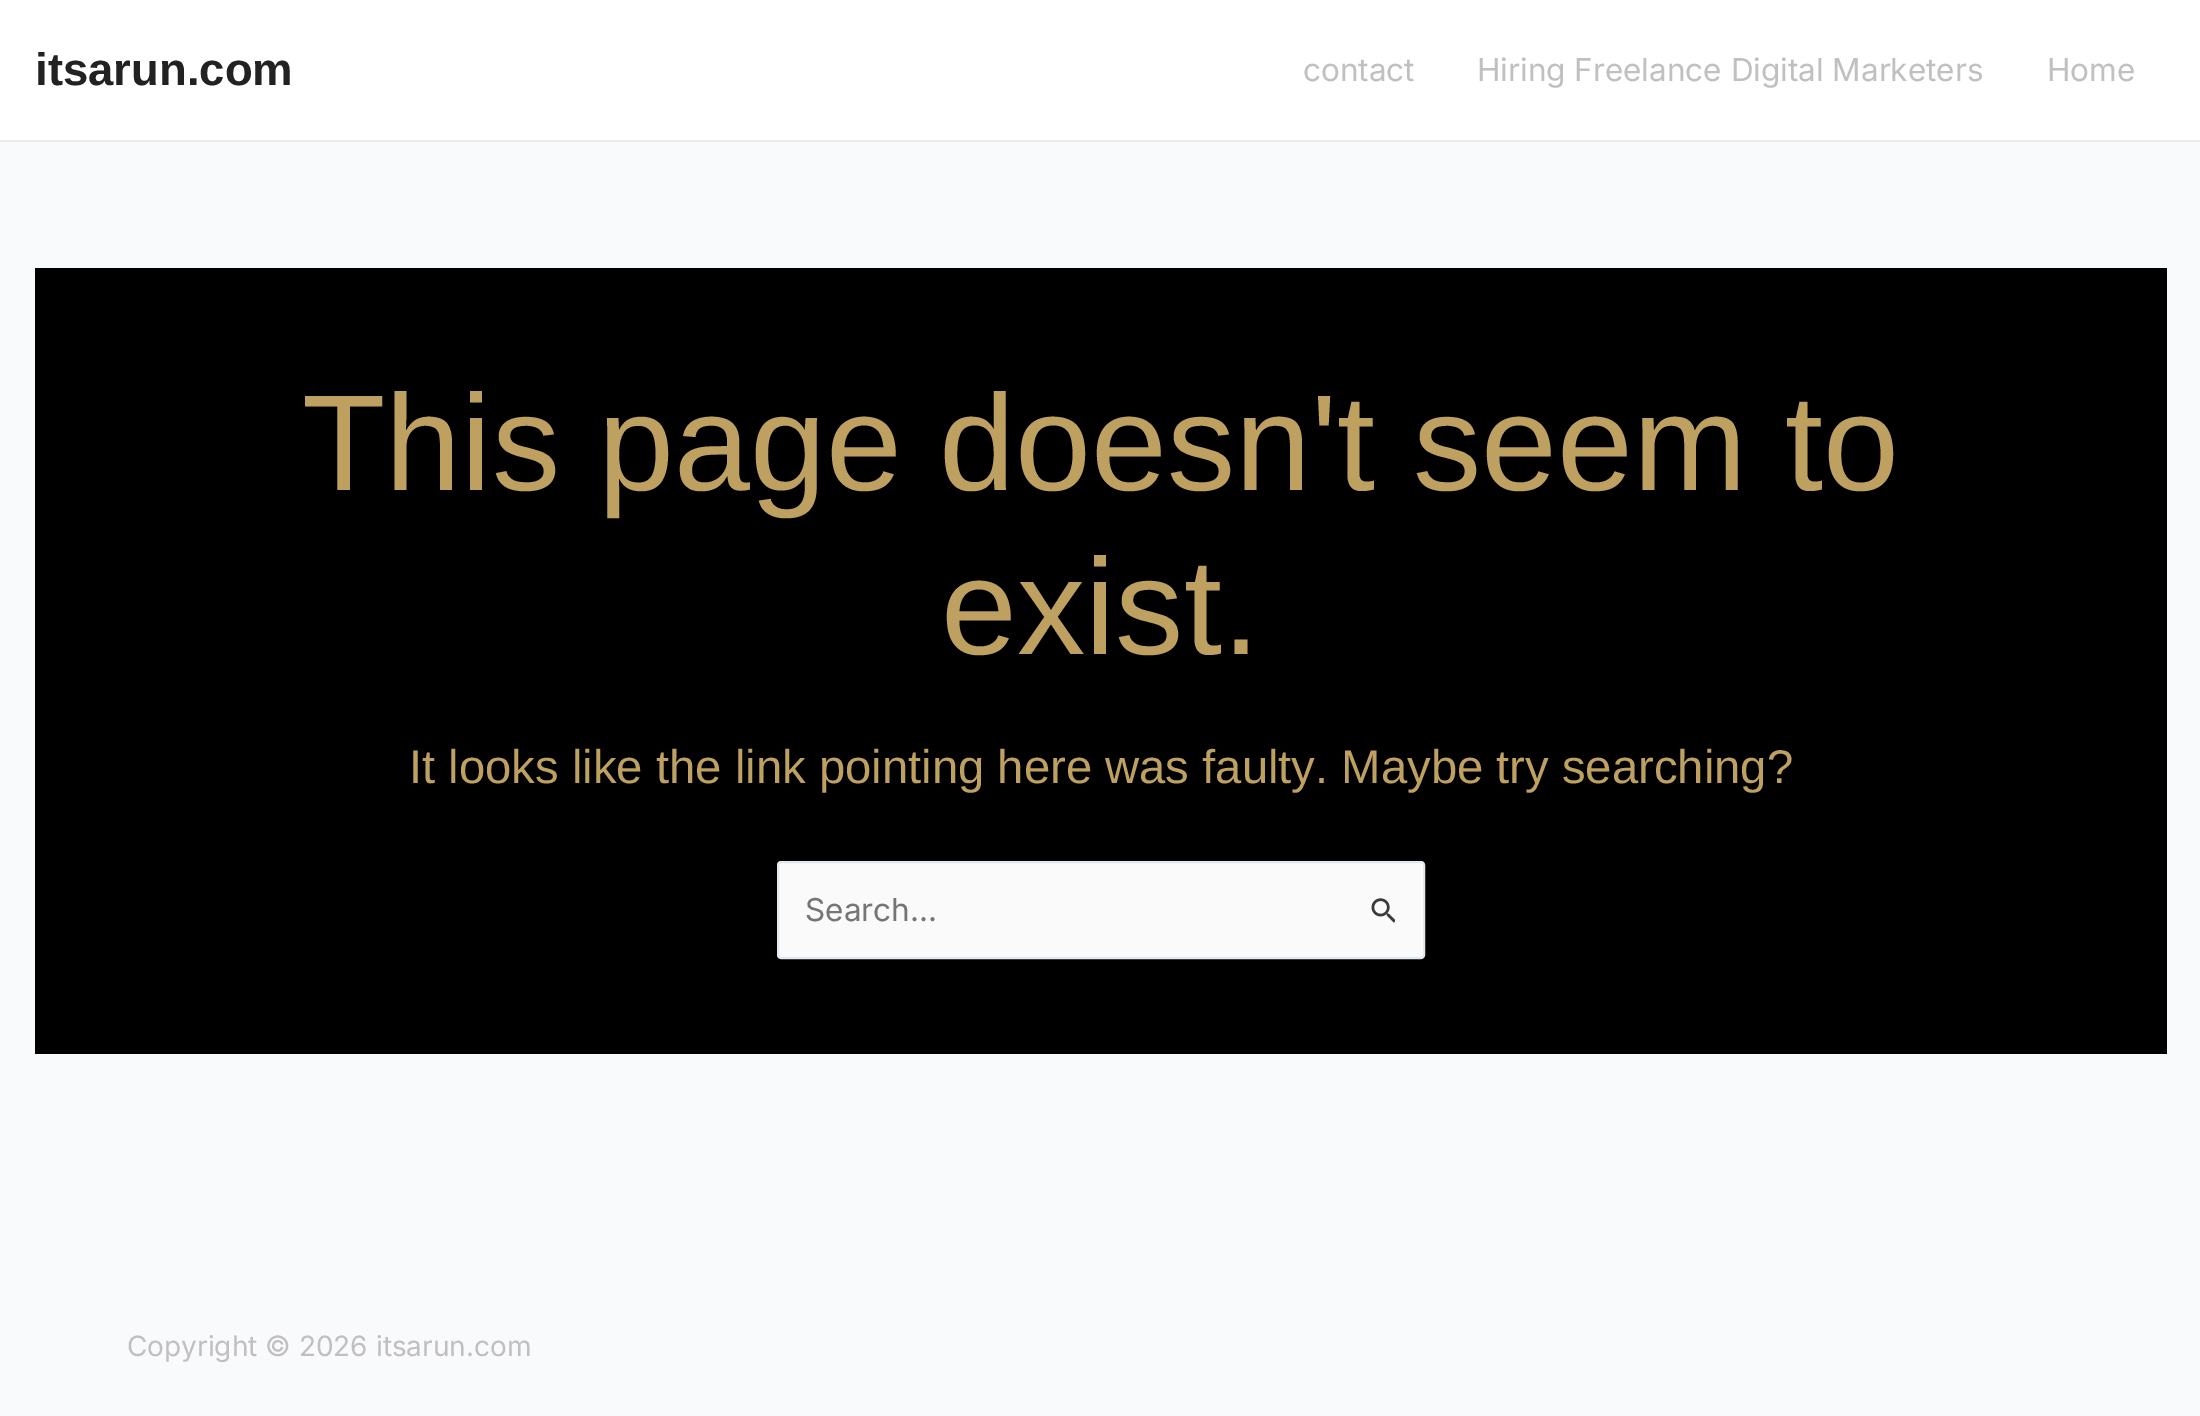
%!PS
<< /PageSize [2200 1416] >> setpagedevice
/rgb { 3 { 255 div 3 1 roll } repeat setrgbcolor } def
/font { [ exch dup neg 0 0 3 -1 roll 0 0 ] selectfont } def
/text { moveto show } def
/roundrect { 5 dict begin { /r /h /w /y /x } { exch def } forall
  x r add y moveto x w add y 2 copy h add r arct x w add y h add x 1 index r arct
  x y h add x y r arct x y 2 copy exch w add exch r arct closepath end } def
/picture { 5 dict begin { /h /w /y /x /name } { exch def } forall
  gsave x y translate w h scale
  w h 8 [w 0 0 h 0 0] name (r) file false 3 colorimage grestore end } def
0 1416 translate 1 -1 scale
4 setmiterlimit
249 250 251 rgb
0 0 2200 1416 rectfill
255 255 255 rgb
0 0 2200 140 rectfill
234 234 234 rgb
0 140 2200 2 rectfill
0 0 0 rgb
35 268 2132 786 rectfill
250 250 250 rgb
778 862 646 96 3 roundrect gsave fill grestore
226 232 240 rgb
2 setlinewidth
stroke
(img_01.rgb) 1371 898 24 25 picture
/LiberationSans-Bold 45.5 font
34 34 34 rgb
(itsarun.com) 35 85 text
/Inter-Regular 31.5 font
193 191 191 rgb
(contact) 1303 81 text
(Hiring Freelance Digital Marketers) 1477 81 text
(Home) 2047 81 text
/LiberationSans-Regular 136.5 font
190 160 96 rgb
(This page doesn't seem to) 302 490 text
(exist.) 941 654 text
/LiberationSans-Regular 47.25 font
(It looks like the link pointing here was faulty. Maybe try searching?) 409 783 text
/Inter-Regular 31.5 font
117 117 117 rgb
(Search...) 805 921 text
/Inter-Regular 28 font
193 191 191 rgb
(Copyright © 2026 itsarun.com) 127 1356 text
showpage
